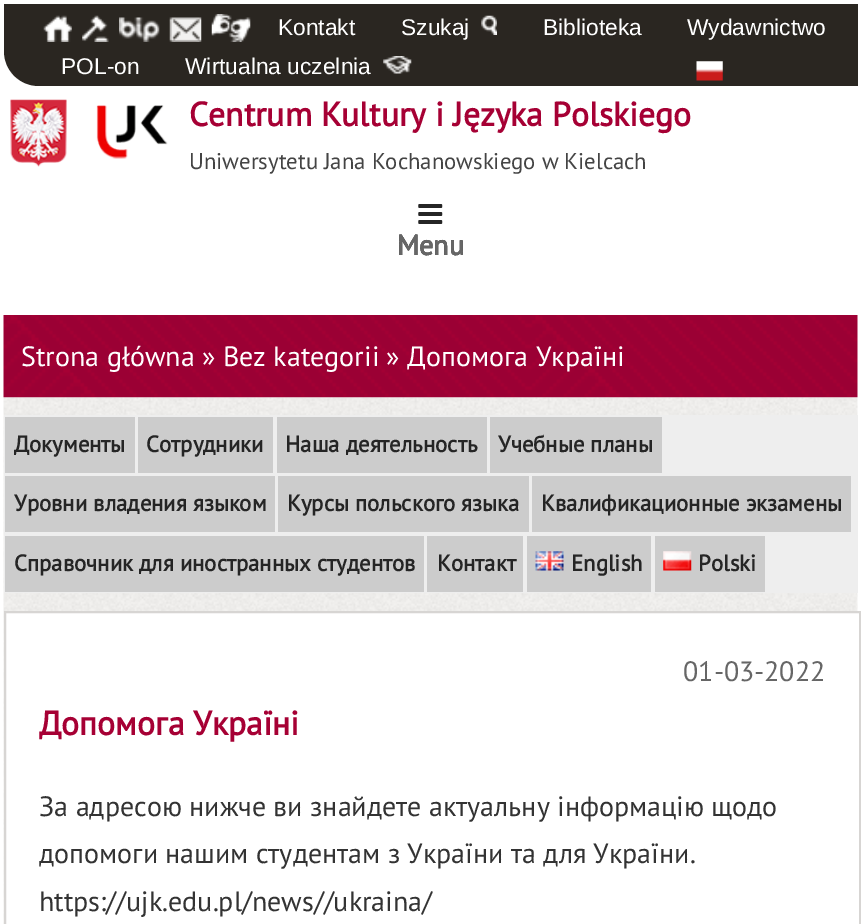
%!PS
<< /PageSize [861 924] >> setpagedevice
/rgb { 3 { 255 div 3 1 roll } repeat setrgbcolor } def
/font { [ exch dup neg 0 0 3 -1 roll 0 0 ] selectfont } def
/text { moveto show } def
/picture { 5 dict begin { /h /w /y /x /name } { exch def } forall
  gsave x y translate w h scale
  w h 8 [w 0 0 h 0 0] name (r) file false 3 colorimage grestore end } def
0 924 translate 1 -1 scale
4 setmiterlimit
255 255 255 rgb
0 0 861 924 rectfill
42 38 33 rgb
4 4 moveto 854 0 rlineto 0 82 rlineto -819 0 rlineto -19.5 0 -35 -15.5 -35 -35 rcurveto closepath fill
(img_01.rgb) 43 15 29 27 picture
(img_02.rgb) 82 15 27 27 picture
(img_03.rgb) 119 17 41 25 picture
(img_04.rgb) 169 17 33 25 picture
(img_05.rgb) 211 14 40 28 picture
(img_06.rgb) 481 15 16 20 picture
(img_07.rgb) 383 56 29 18 picture
(img_08.rgb) 696 61 27 20 picture
(img_09.rgb) 10 99 57 68 picture
(img_10.rgb) 96 105 72 54 picture
(img_11.rgb) 418 204 25 20 picture
(img_13.rgb) 3 397 855 527 picture
(img_12.rgb) 3 315 855 83 picture
238 238 238 rgb
4 415 854 178 rectfill
204 204 204 rgb
5 417 130 56 rectfill
138 417 135 56 rectfill
277 417 210 56 rectfill
490 417 172 56 rectfill
5 476 270 56 rectfill
278 476 251 56 rectfill
532 476 319 56 rectfill
5 536 419 56 rectfill
427 536 96 56 rectfill
527 536 124 56 rectfill
(img_14.rgb) 535 551 29 20 picture
655 536 110 56 rectfill
(img_15.rgb) 663 551 29 20 picture
255 255 255 rgb
6 613 852 311 rectfill
215 213 211 rgb
2 setlinewidth
5 612 855 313 rectstroke
/LiberationSans-Regular 22.75 font
255 255 255 rgb
(Kontakt) 278 35 text
(Szukaj) 401 35 text
(Biblioteka) 543 35 text
(Wydawnictwo) 687 35 text
(POL-on) 61 74 text
(Wirtualna uczelnia) 185 74 text
/PTSans-Bold 33.6 font
166 0 52 rgb
(Centrum Kultury i Języka Polskiego) 189 126 text
/PTSans-Regular 22.75 font
68 68 68 rgb
(Uniwersytetu Jana Kochanowskiego w Kielcach) 189 169 text
/PTSans-Bold 28 font
37 37 37 rgb
(Menu) 397 255 text
102 102 102 rgb
(Menu) 397 255 text
/PTSans-Regular 28 font
255 255 255 rgb
(Strona główna » Bez kategorii » Допомога Україні) 21 366 text
/PTSans-Bold 22.75 font
37 37 37 rgb
(Документы) 14 452 text
(Сотрудники) 146 452 text
(Наша деятельность) 285 452 text
(Учебные планы) 498 452 text
(Уровни владения языком) 14 511 text
(Курсы польского языка) 287 511 text
(Квалификационные экзамены) 541 511 text
(Справочник для иностранных студентов) 14 571 text
(Контакт) 437 571 text
(English) 571 571 text
(Polski) 698 571 text
/PTSans-Regular 28 font
102 102 102 rgb
(01-03-2022) 683 681 text
/PTSans-Bold 33.6 font
166 0 52 rgb
(Допомога Україні) 39 735 text
/PTSans-Regular 28 font
51 51 51 rgb
(За адресою нижче ви знайдете актуальну інформацію щодо) 39 816 text
(допомоги нашим студентам з України та для України.) 39 863 text
(https://ujk.edu.pl/news//ukraina/) 39 911 text
showpage
